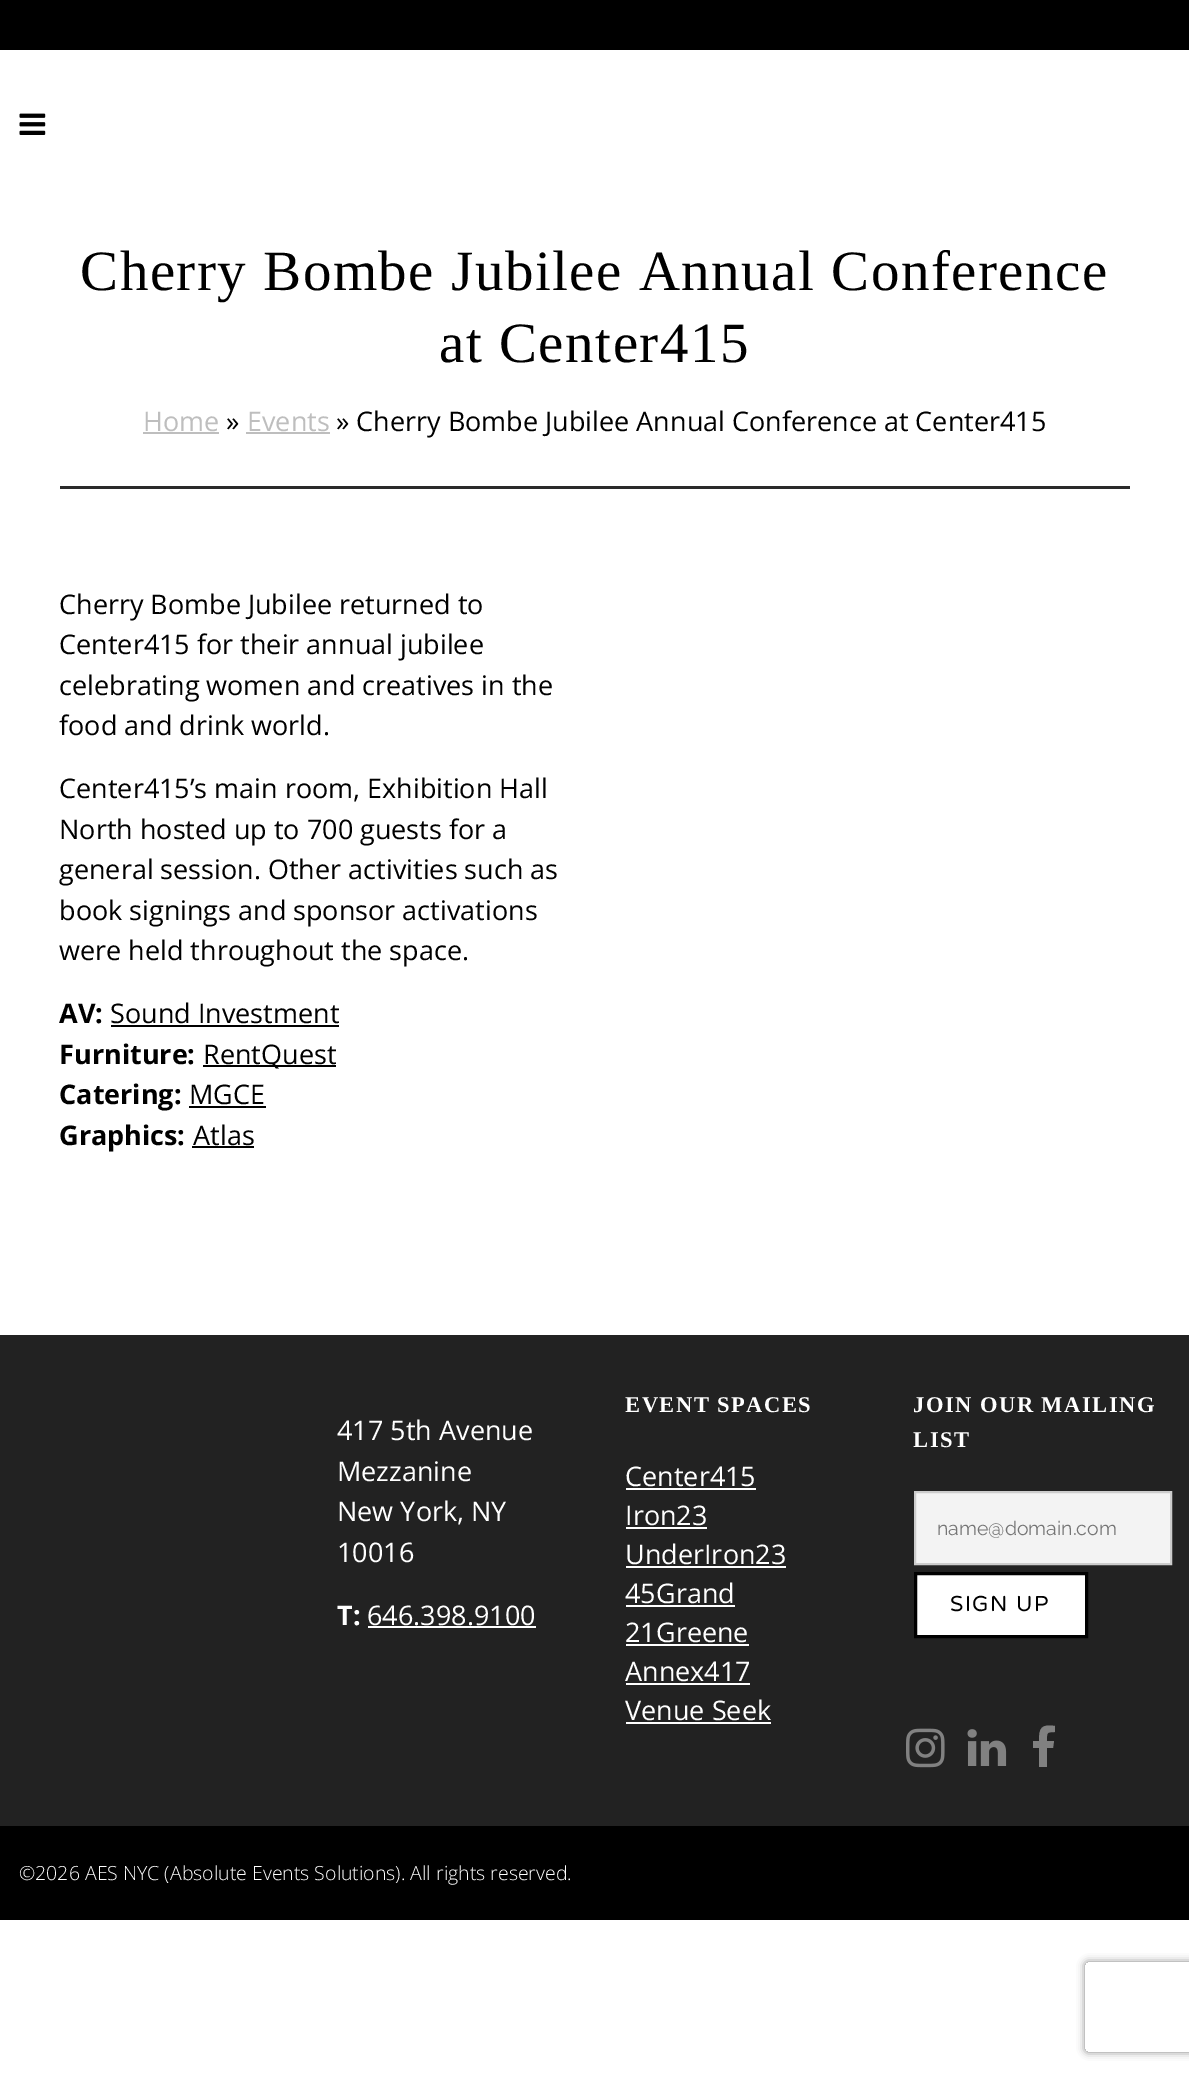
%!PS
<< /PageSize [1189 2073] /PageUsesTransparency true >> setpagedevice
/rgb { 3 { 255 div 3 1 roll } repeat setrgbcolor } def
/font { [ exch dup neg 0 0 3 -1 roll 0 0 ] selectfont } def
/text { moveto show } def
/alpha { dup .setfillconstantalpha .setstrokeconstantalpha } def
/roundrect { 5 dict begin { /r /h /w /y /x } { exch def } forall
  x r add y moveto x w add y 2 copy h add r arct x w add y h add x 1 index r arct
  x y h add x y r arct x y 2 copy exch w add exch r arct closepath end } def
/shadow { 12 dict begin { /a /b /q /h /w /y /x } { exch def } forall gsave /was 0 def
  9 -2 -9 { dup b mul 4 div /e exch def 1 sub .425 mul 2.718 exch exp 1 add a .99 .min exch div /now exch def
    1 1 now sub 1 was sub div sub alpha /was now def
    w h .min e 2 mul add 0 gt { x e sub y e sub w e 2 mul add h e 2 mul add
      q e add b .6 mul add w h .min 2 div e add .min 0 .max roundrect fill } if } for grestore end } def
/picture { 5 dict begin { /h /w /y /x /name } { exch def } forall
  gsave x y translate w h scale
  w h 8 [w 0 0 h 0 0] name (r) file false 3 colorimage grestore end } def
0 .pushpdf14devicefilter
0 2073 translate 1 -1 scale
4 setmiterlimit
255 255 255 rgb
0 0 1189 2073 rectfill
0 0 0 rgb
0 0 1189 50 rectfill
(img_01.rgb) 19 113 27 22 picture
42 42 42 rgb
60 486 1070 3 rectfill
190 190 190 rgb
143 432 76 2 rectfill
246 432 84 2 rectfill
0 0 0 rgb
111 1025 228 2 rectfill
203 1065 133 2 rectfill
189 1106 77 2 rectfill
192 1146 62 2 rectfill
34 34 34 rgb
0 1335 1189 491 rectfill
255 255 255 rgb
368 1626 168 2 rectfill
626 1488 130 2 rectfill
626 1527 81 2 rectfill
626 1566 160 2 rectfill
626 1605 109 2 rectfill
626 1644 123 2 rectfill
626 1683 124 2 rectfill
626 1722 145 2 rectfill
243 243 243 rgb
915 1492 moveto 256 0 rlineto 0 72 rlineto -256 0 rlineto closepath gsave fill grestore
204 204 204 rgb
2 setlinewidth
stroke
255 255 255 rgb
915.5 1573.5 moveto 171 0 rlineto 0 63 rlineto -171 0 rlineto closepath gsave fill grestore
0 0 0 rgb
3 setlinewidth
stroke
(img_02.rgb) 906 1728 39 40 picture
(img_03.rgb) 967 1729 40 37 picture
129 129 129 rgb
1055 1726 moveto -14 -2 -16 2 -16 15 rcurveto -6 0 rlineto 0 7 rlineto 6 0 rlineto 0 19 rlineto 8 0 rlineto 0 -19 rlineto 6 0 rlineto 1 -7 rlineto -7 0 rlineto 0 -8 -1 -9 8 -9 rcurveto closepath fill
0 0 0 rgb
0 1826 1189 94 rectfill
gsave
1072 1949 moveto 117 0 rlineto 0 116 rlineto -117 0 rlineto closepath 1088 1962 moveto 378 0 rlineto 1.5 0 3 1.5 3 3 rcurveto 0 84 rlineto 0 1.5 -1.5 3 -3 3 rcurveto -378 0 rlineto -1.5 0 -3 -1.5 -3 -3 rcurveto 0 -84 rlineto 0 -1.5 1.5 -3 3 -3 rcurveto closepath eoclip newpath
128 128 128 rgb
1085 1962 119 90 3 4 1 shadow
grestore
/LiberationSerif-Regular 57 font
80 290 moveto 1.5 0 (Cherry Bombe Jubilee Annual Conference) ashow
439 362 moveto 1.5 0 (at Center415) ashow
/OpenSans-Regular 27 font
190 190 190 rgb
(Home) 143 431 text
0 0 0 rgb
(») 226 431 text
190 190 190 rgb
(Events) 247 431 text
0 0 0 rgb
(» Cherry Bombe Jubilee Annual Conference at Center415) 336 431 text
(Cherry Bombe Jubilee returned to) 59 614 text
(Center415 for their annual jubilee) 59 654 text
(celebrating women and creatives in the) 59 695 text
(food and drink world.) 59 735 text
(Center415’s main room, Exhibition Hall) 59 798 text
(North hosted up to 700 guests for a) 59 839 text
(general session. Other activities such as) 59 879 text
(book signings and sponsor activations) 59 920 text
(were held throughout the space.) 59 960 text
/OpenSans-Bold 27 font
(AV:) 59 1023 text
/OpenSans-Regular 27 font
(Sound Investment) 110 1023 text
/OpenSans-Bold 27 font
(Furniture:) 59 1064 text
/OpenSans-Regular 27 font
(RentQuest) 203 1064 text
/OpenSans-Bold 27 font
(Catering:) 59 1104 text
/OpenSans-Regular 27 font
(MGCE) 189 1104 text
/OpenSans-Bold 27 font
(Graphics:) 59 1145 text
/OpenSans-Regular 27 font
(Atlas) 193 1145 text
255 255 255 rgb
(417 5th Avenue) 337 1440 text
(Mezzanine) 337 1481 text
(New York, NY) 337 1521 text
(10016) 337 1562 text
/OpenSans-Bold 27 font
(T:) 337 1625 text
/OpenSans-Regular 27 font
(646.398.9100) 367 1625 text
/LiberationSerif-Bold 22.5 font
625 1412 moveto 1.5 0 (EVENT SPACES) ashow
/OpenSans-Regular 27 font
(Center415) 625 1486 text
(Iron23) 625 1525 text
(UnderIron23) 625 1564 text
(45Grand) 625 1603 text
(21Greene) 625 1642 text
(Annex417) 625 1681 text
(Venue Seek) 625 1720 text
/LiberationSerif-Bold 22.5 font
913 1412 moveto 1.5 0 (JOIN OUR MAILING) ashow
913 1447 moveto 1.5 0 (LIST) ashow
/Raleway-Regular 19.5 font
117 117 117 rgb
(name@domain.com) 937 1535 text
/NTR-Regular 27 font
0 0 0 rgb
950 1611 moveto 1.5 0 (SIGN UP) ashow
/OpenSans-Light 19.5 font
255 255 255 rgb
(©2026 AES NYC \(Absolute Events Solutions\). All rights reserved.) 19 1880 text
.poppdf14devicefilter showpage
